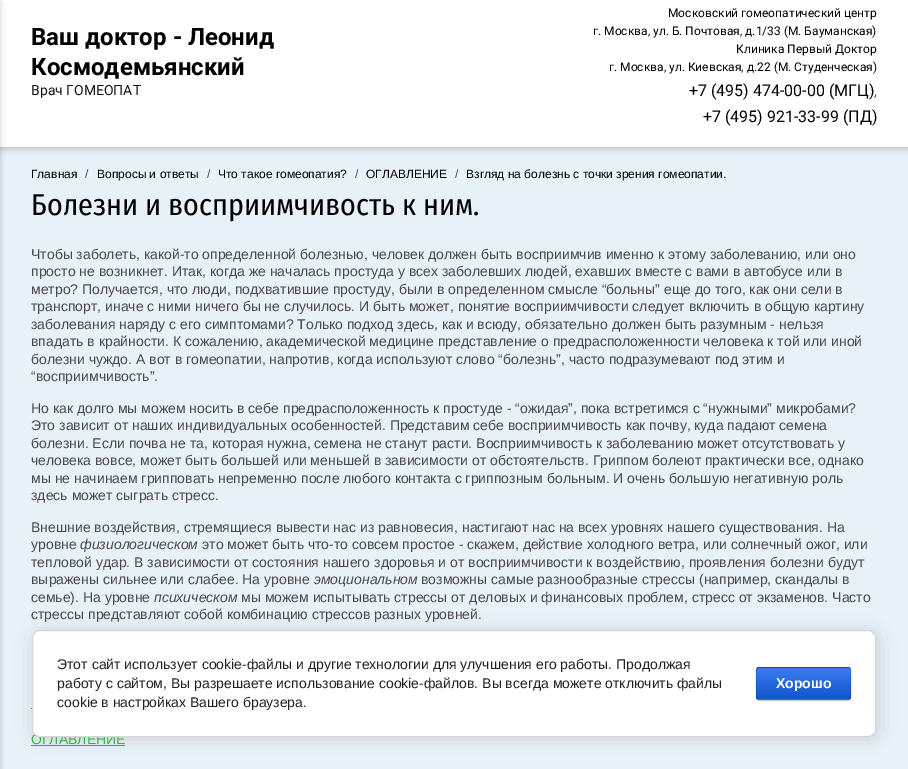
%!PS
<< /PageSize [908 769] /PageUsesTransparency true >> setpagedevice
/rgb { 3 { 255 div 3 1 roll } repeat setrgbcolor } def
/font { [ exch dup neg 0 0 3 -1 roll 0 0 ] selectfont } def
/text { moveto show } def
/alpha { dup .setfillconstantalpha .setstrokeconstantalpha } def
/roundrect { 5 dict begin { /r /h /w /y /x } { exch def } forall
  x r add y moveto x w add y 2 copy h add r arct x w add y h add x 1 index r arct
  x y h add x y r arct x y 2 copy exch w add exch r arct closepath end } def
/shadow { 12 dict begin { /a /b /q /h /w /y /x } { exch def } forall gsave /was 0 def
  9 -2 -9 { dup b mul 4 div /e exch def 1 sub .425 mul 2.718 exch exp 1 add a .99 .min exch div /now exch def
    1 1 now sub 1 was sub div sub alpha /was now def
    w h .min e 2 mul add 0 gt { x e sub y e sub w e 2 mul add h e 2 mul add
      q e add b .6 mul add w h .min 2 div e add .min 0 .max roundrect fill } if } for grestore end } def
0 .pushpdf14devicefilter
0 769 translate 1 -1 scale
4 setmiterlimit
231 241 248 rgb
0 0 908 769 rectfill
0 0 0 rgb
0 -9 908 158 0 3 0.2 shadow
255 255 255 rgb
0 0 908 147 rectfill
0 0 0 rgb
-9 2 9 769 0 3 0.2 shadow
50 178 67 rgb
31 708 1 1 rectfill
31 745 94 1 rectfill
0 0 0 rgb
34 632 844 107 8 9 0.14 shadow
/Roboto-Bold 24 font
(Ваш доктор - Леонид) 31 45 text
(Космодемьянский) 31 75 text
/Roboto-Regular 14 font
18 18 18 rgb
(Врач ГОМЕОПАТ) 31 95 text
/Roboto-Regular 12 font
0 0 0 rgb
(Московский гомеопатический центр) 668 17 text
(г. Москва, ул. Б. Почтовая, д.1/33 \(М. Бауманская\)) 593 35 text
(Клиника Первый Доктор) 736 53 text
(г. Москва, ул. Киевская, д.22 \(М. Студенческая\)) 609 71 text
/Roboto-Regular 16 font
(+7 \(495\) 474-00-00 \(МГЦ\)) 689 96 text
/Roboto-Regular 14 font
74 74 74 rgb
(,) 874 96 text
/Roboto-Regular 16 font
0 0 0 rgb
(+7 \(495\) 921-33-99 \(ПД\)) 703 122 text
/LiberationSans-Regular 12 font
(Главная) 31 178 text
74 74 74 rgb
(/) 85 178 text
0 0 0 rgb
(Вопросы и ответы) 97 178 text
74 74 74 rgb
(/) 207 178 text
0 0 0 rgb
(Что такое гомеопатия?) 218 178 text
74 74 74 rgb
(/) 355 178 text
0 0 0 rgb
(ОГЛАВЛЕНИЕ) 366 178 text
74 74 74 rgb
(/) 455 178 text
0 0 0 rgb
(Взгляд на болезнь с точки зрения гомеопатии.) 466 178 text
/FiraSansCondensed-Regular 30 font
(Болезни и восприимчивость к ним.) 31 215 text
/LiberationSans-Regular 14 font
74 74 74 rgb
(Чтобы заболеть, какой-то определенной болезнью, человек должен быть восприимчив именно к этому заболеванию, или оно) 31 259 text
(просто не возникнет. Итак, когда же началась простуда у всех заболевших людей, ехавших вместе с вами в автобусе или в) 31 276 text
(метро? Получается, что люди, подхватившие простуду, были в определенном смысле “больны” еще до того, как они сели в) 31 294 text
(транспорт, иначе с ними ничего бы не случилось. И быть может, понятие восприимчивости следует включить в общую картину) 31 311 text
(заболевания наряду с его симптомами? Только подход здесь, как и всюду, обязательно должен быть разумным - нельзя) 31 329 text
(впадать в крайности. К сожалению, академической медицине представление о предрасположенности человека к той или иной) 31 346 text
(болезни чуждо. А вот в гомеопатии, напротив, когда используют слово “болезнь”, часто подразумевают под этим и) 31 364 text
(“восприимчивость”.) 31 381 text
(Но как долго мы можем носить в себе предрасположенность к простуде - “ожидая”, пока встретимся с “нужными” микробами?) 31 413 text
(Это зависит от наших индивидуальных особенностей. Представим себе восприимчивость как почву, куда падают семена) 31 430 text
(болезни. Если почва не та, которая нужна, семена не станут расти. Восприимчивость к заболеванию может отсутствовать у) 31 448 text
(человека вовсе, может быть большей или меньшей в зависимости от обстоятельств. Гриппом болеют практически все, однако) 31 465 text
(мы не начинаем грипповать непременно после любого контакта с гриппозным больным. И очень большую негативную роль) 31 483 text
(здесь может сыграть стресс.) 31 500 text
(Внешние воздействия, стремящиеся вывести нас из равновесия, настигают нас на всех уровнях нашего существования. На) 31 532 text
(уровне) 31 549 text
/LiberationSans-Italic 14 font
(физиологическом) 80 549 text
/LiberationSans-Regular 14 font
(это может быть что-то совсем простое - скажем, действие холодного ветра, или солнечный ожог, или) 202 549 text
(тепловой удар. В зависимости от состояния нашего здоровья и от восприимчивости к воздействию, проявления болезни будут) 31 567 text
(выражены сильнее или слабее. На уровне) 31 584 text
/LiberationSans-Italic 14 font
(эмоциональном) 314 584 text
/LiberationSans-Regular 14 font
(возможны самые разнообразные стрессы \(например, скандалы в) 421 584 text
(семье\). На уровне) 31 602 text
/LiberationSans-Italic 14 font
(психическом) 154 602 text
/LiberationSans-Regular 14 font
(мы можем испытывать стрессы от деловых и финансовых проблем, стресс от экзаменов. Часто) 241 602 text
(стрессы представляют собой комбинацию стрессов разных уровней.) 31 619 text
50 178 67 rgb
(ОГЛАВЛЕНИЕ) 31 744 text
255 255 255 rgb
32.5 630.5 843 106 7.5 roundrect gsave fill grestore
214 214 214 rgb
stroke
33 33 33 rgb
(Этот сайт использует cookie-файлы и другие технологии для улучшения его работы. Продолжая) 57 669 text
(работу с сайтом, Вы разрешаете использование cookie-файлов. Вы всегда можете отключить файлы) 57 688 text
(cookie в настройках Вашего браузера.) 57 707 text
0 0 0 rgb
756 668 95 33 4 0.5 0.2 shadow
gsave
756 667 95 33 4 roundrect clip newpath
gsave 756 667 moveto 95 0 rlineto 0 1 rlineto -95 0 rlineto closepath clip newpath
<< /ShadingType 2 /ColorSpace /DeviceRGB /Coords [804 637 804 668] /Extend [true true] /Function << /FunctionType 2 /Domain [0 1] /C0 [0.231 0.486 0.937] /C1 [0.067 0.333 0.8] /N 1 >> >> shfill grestore
gsave 756 668 moveto 95 0 rlineto 0 31 rlineto -95 0 rlineto closepath clip newpath
<< /ShadingType 2 /ColorSpace /DeviceRGB /Coords [804 668 804 699] /Extend [true true] /Function << /FunctionType 2 /Domain [0 1] /C0 [0.231 0.486 0.937] /C1 [0.067 0.333 0.8] /N 1 >> >> shfill grestore
gsave 756 699 moveto 95 0 rlineto 0 1 rlineto -95 0 rlineto closepath clip newpath
<< /ShadingType 2 /ColorSpace /DeviceRGB /Coords [804 699 804 730] /Extend [true true] /Function << /FunctionType 2 /Domain [0 1] /C0 [0.231 0.486 0.937] /C1 [0.067 0.333 0.8] /N 1 >> >> shfill grestore
grestore
0.1 alpha
756.5 667.5 94 32 3.5 roundrect stroke
/LiberationSans-Bold 14 font
1 alpha
255 255 255 rgb
(Хорошо) 776 688 text
.poppdf14devicefilter showpage
